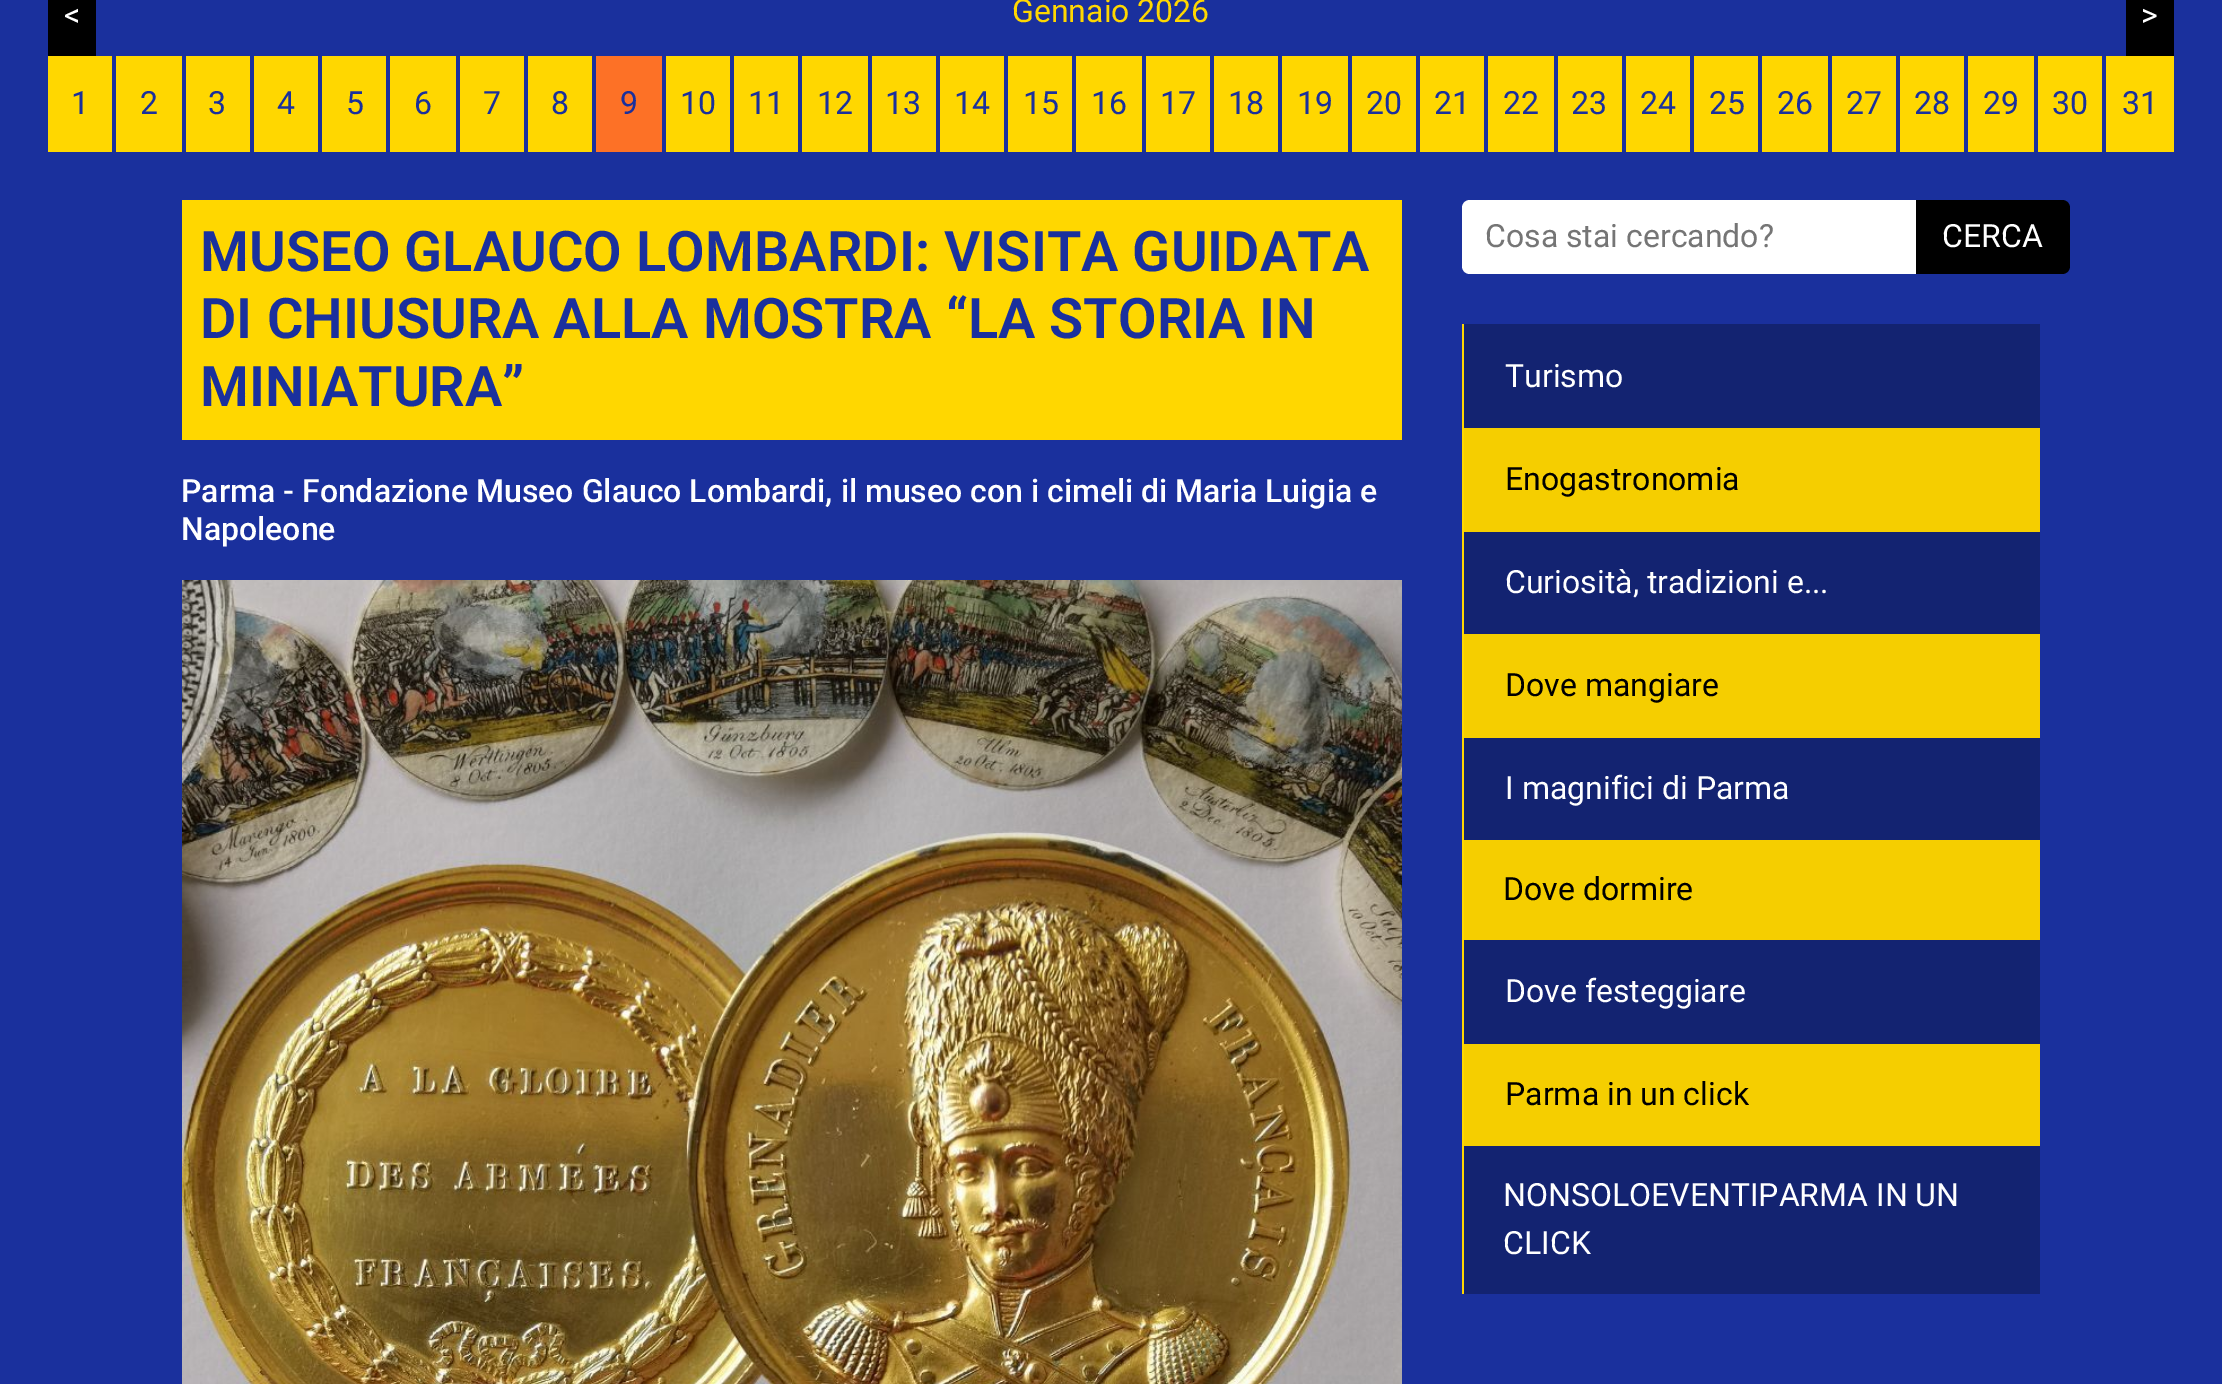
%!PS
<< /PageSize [2222 1384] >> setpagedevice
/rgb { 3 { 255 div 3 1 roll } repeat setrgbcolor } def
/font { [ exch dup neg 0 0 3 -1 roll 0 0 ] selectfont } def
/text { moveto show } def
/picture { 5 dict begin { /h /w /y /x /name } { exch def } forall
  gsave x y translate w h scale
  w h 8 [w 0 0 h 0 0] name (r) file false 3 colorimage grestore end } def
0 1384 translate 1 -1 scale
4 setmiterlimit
26 48 157 rgb
0 0 2222 1384 rectfill
0 0 0 rgb
48 0 48 56 rectfill
2126 0 48 56 rectfill
255 215 0 rgb
48 56 64 96 rectfill
116 56 66 96 rectfill
186 56 64 96 rectfill
254 56 64 96 rectfill
322 56 64 96 rectfill
390 56 66 96 rectfill
460 56 64 96 rectfill
528 56 64 96 rectfill
253 113 38 rgb
596 56 66 96 rectfill
255 215 0 rgb
666 56 64 96 rectfill
734 56 64 96 rectfill
802 56 66 96 rectfill
872 56 64 96 rectfill
940 56 64 96 rectfill
1008 56 64 96 rectfill
1076 56 66 96 rectfill
1146 56 64 96 rectfill
1214 56 64 96 rectfill
1282 56 66 96 rectfill
1352 56 64 96 rectfill
1420 56 64 96 rectfill
1488 56 66 96 rectfill
1558 56 64 96 rectfill
1626 56 64 96 rectfill
1694 56 64 96 rectfill
1762 56 66 96 rectfill
1832 56 64 96 rectfill
1900 56 64 96 rectfill
1968 56 66 96 rectfill
2038 56 64 96 rectfill
2106 56 68 96 rectfill
182 200 1220 240 rectfill
(img_01.rgb) 182 580 1220 804 picture
255 255 255 rgb
1470 200 moveto 446 0 rlineto 0 74 rlineto -446 0 rlineto -4.5 0 -8 -3.5 -8 -8 rcurveto 0 -58 rlineto 0 -4.5 3.5 -8 8 -8 rcurveto closepath fill
0 0 0 rgb
1916 200 moveto 146 0 rlineto 4.5 0 8 3.5 8 8 rcurveto 0 58 rlineto 0 4.5 -3.5 8 -8 8 rcurveto -146 0 rlineto closepath fill
19 35 113 rgb
1464 324 576 104 rectfill
255 215 0 rgb
1462 324 2 970 rectfill
245 206 0 rgb
1464 428 576 104 rectfill
19 35 113 rgb
1464 532 576 102 rectfill
245 206 0 rgb
1464 634 576 104 rectfill
19 35 113 rgb
1464 738 576 102 rectfill
245 206 0 rgb
1464 840 576 100 rectfill
19 35 113 rgb
1464 940 576 104 rectfill
245 206 0 rgb
1464 1044 576 102 rectfill
19 35 113 rgb
1464 1146 576 148 rectfill
/Roboto-Regular 32 font
255 255 255 rgb
(<) 64 26 text
255 215 0 rgb
(Gennaio 2026) 1012 22 text
255 255 255 rgb
(>) 2141 26 text
26 48 157 rgb
(1) 71 114 text
(2) 140 114 text
(3) 208 114 text
(4) 277 114 text
(5) 346 114 text
(6) 414 114 text
(7) 483 114 text
(8) 551 114 text
(9) 620 114 text
(10) 680 114 text
(11) 748 114 text
(12) 817 114 text
(13) 885 114 text
(14) 954 114 text
(15) 1023 114 text
(16) 1091 114 text
(17) 1160 114 text
(18) 1228 114 text
(19) 1297 114 text
(20) 1366 114 text
(21) 1434 114 text
(22) 1503 114 text
(23) 1571 114 text
(24) 1640 114 text
(25) 1709 114 text
(26) 1777 114 text
(27) 1846 114 text
(28) 1914 114 text
(29) 1983 114 text
(30) 2052 114 text
(31) 2122 114 text
/Roboto-SemiBold 56 font
(MUSEO GLAUCO LOMBARDI: VISITA GUIDATA) 200 271 text
(DI CHIUSURA ALLA MOSTRA “LA STORIA IN) 200 338 text
(MINIATURA”) 200 406 text
/Roboto-Medium 32 font
255 255 255 rgb
(Parma - Fondazione Museo Glauco Lombardi, il museo con i cimeli di Maria Luigia e) 181 502 text
(Napoleone) 181 540 text
/Roboto-Regular 32 font
117 117 117 rgb
(Cosa stai cercando?) 1485 247 text
255 255 255 rgb
(CERCA) 1942 247 text
(Turismo) 1505 387 text
0 0 0 rgb
(Enogastronomia) 1505 490 text
255 255 255 rgb
(Curiosità, tradizioni e...) 1505 593 text
0 0 0 rgb
(Dove mangiare) 1505 696 text
255 255 255 rgb
(I magnifici di Parma) 1505 799 text
0 0 0 rgb
(Dove dormire) 1503 900 text
255 255 255 rgb
(Dove festeggiare) 1505 1002 text
0 0 0 rgb
(Parma in un click) 1505 1105 text
255 255 255 rgb
(NONSOLOEVENTIPARMA IN UN) 1503 1206 text
(CLICK) 1503 1254 text
showpage
